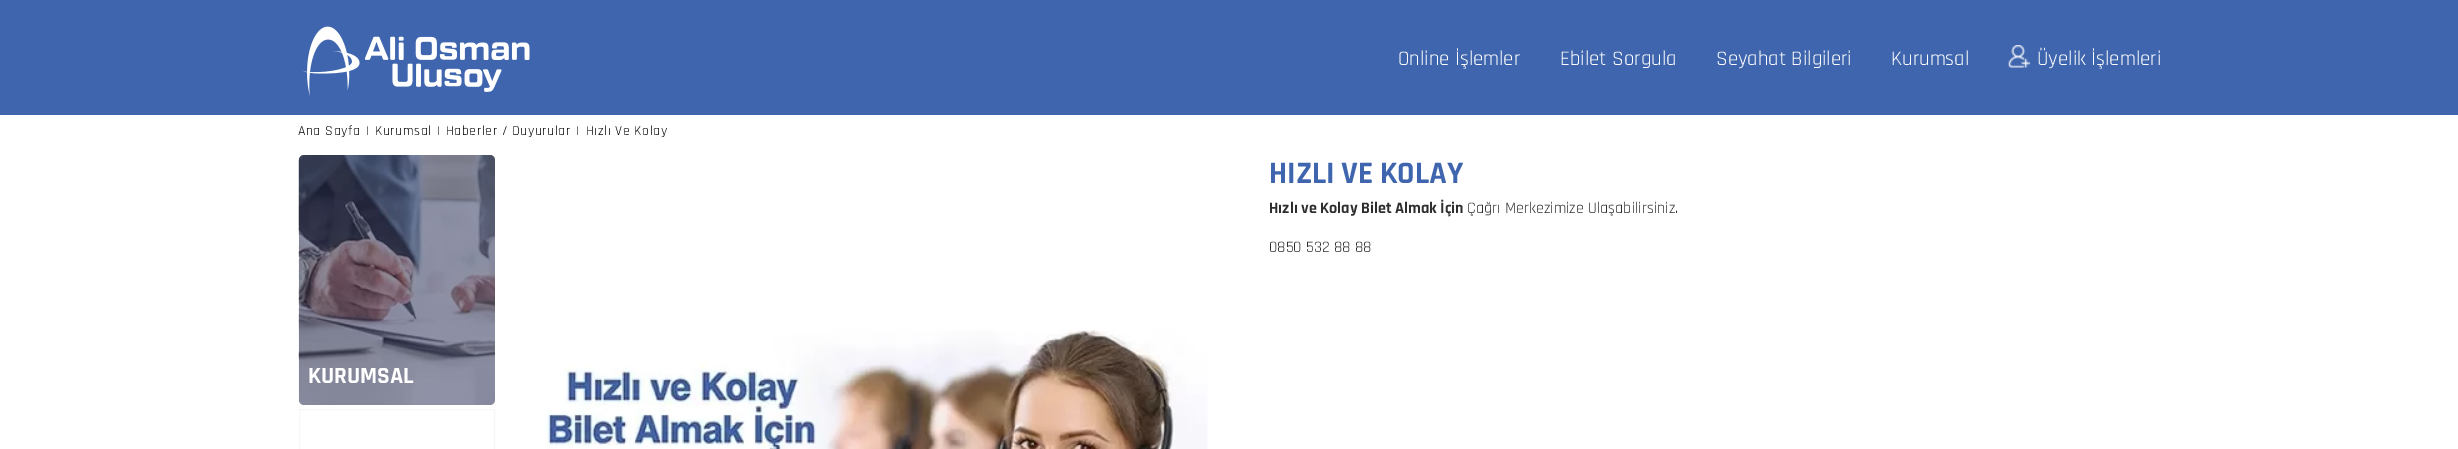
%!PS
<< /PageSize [2458 449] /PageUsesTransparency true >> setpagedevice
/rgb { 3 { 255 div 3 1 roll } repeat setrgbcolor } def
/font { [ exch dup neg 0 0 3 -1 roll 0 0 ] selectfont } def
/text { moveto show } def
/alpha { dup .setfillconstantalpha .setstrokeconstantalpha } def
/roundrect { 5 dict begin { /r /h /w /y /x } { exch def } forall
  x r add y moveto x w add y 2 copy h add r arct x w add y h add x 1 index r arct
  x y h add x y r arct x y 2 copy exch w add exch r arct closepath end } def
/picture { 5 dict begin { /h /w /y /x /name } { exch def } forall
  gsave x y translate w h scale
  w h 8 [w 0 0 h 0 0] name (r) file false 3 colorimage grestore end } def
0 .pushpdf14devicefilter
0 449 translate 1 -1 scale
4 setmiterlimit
255 255 255 rgb
0 0 2458 449 rectfill
62 101 173 rgb
0 0 2458 115 rectfill
(img_01.rgb) 303 26 227 70 picture
(img_02.rgb) 2008 45 23 23 picture
(img_03.rgb) 545 330 663 119 picture
(img_04.rgb) 298 155 197 250 picture
0.5 alpha
33 39 79 rgb
299 155 196 250 5 roundrect fill
1 alpha
246 246 246 rgb
299.5 409.5 195 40 rectstroke
/Rajdhani-Regular 20.75 font
255 255 255 rgb
(Online İşlemler) 1398 65 text
(Ebilet Sorgula) 1560 65 text
(Seyahat Bilgileri) 1716 65 text
(Kurumsal) 1891 65 text
(Üyelik İşlemleri) 2037 65 text
/Rajdhani-Regular 13.75 font
0 0 0 rgb
298 135 moveto 0.6 0 (Ana Sayfa) ashow
366 135 moveto 0.6 0 (|) ashow
375 135 moveto 0.6 0 (Kurumsal) ashow
437 135 moveto 0.6 0 (|) ashow
446 135 moveto 0.6 0 (Haberler / Duyurular) ashow
576 135 moveto 0.6 0 (|) ashow
586 135 moveto 0.6 0 (Hızlı Ve Kolay) ashow
/Rajdhani-Bold 31.5 font
62 101 173 rgb
(HIZLI VE KOLAY) 1269 183 text
/Rajdhani-Bold 16.1 font
46 46 46 rgb
(Hızlı ve Kolay Bilet Almak İçin) 1269 213 text
/Rajdhani-Regular 16.1 font
(Çağrı Merkezimize Ulaşabilirsiniz.) 1467 213 text
(0850 532 88 88) 1269 252 text
/Rajdhani-Bold 23.5 font
255 255 255 rgb
(KURUMSAL) 308 383 text
.poppdf14devicefilter showpage
